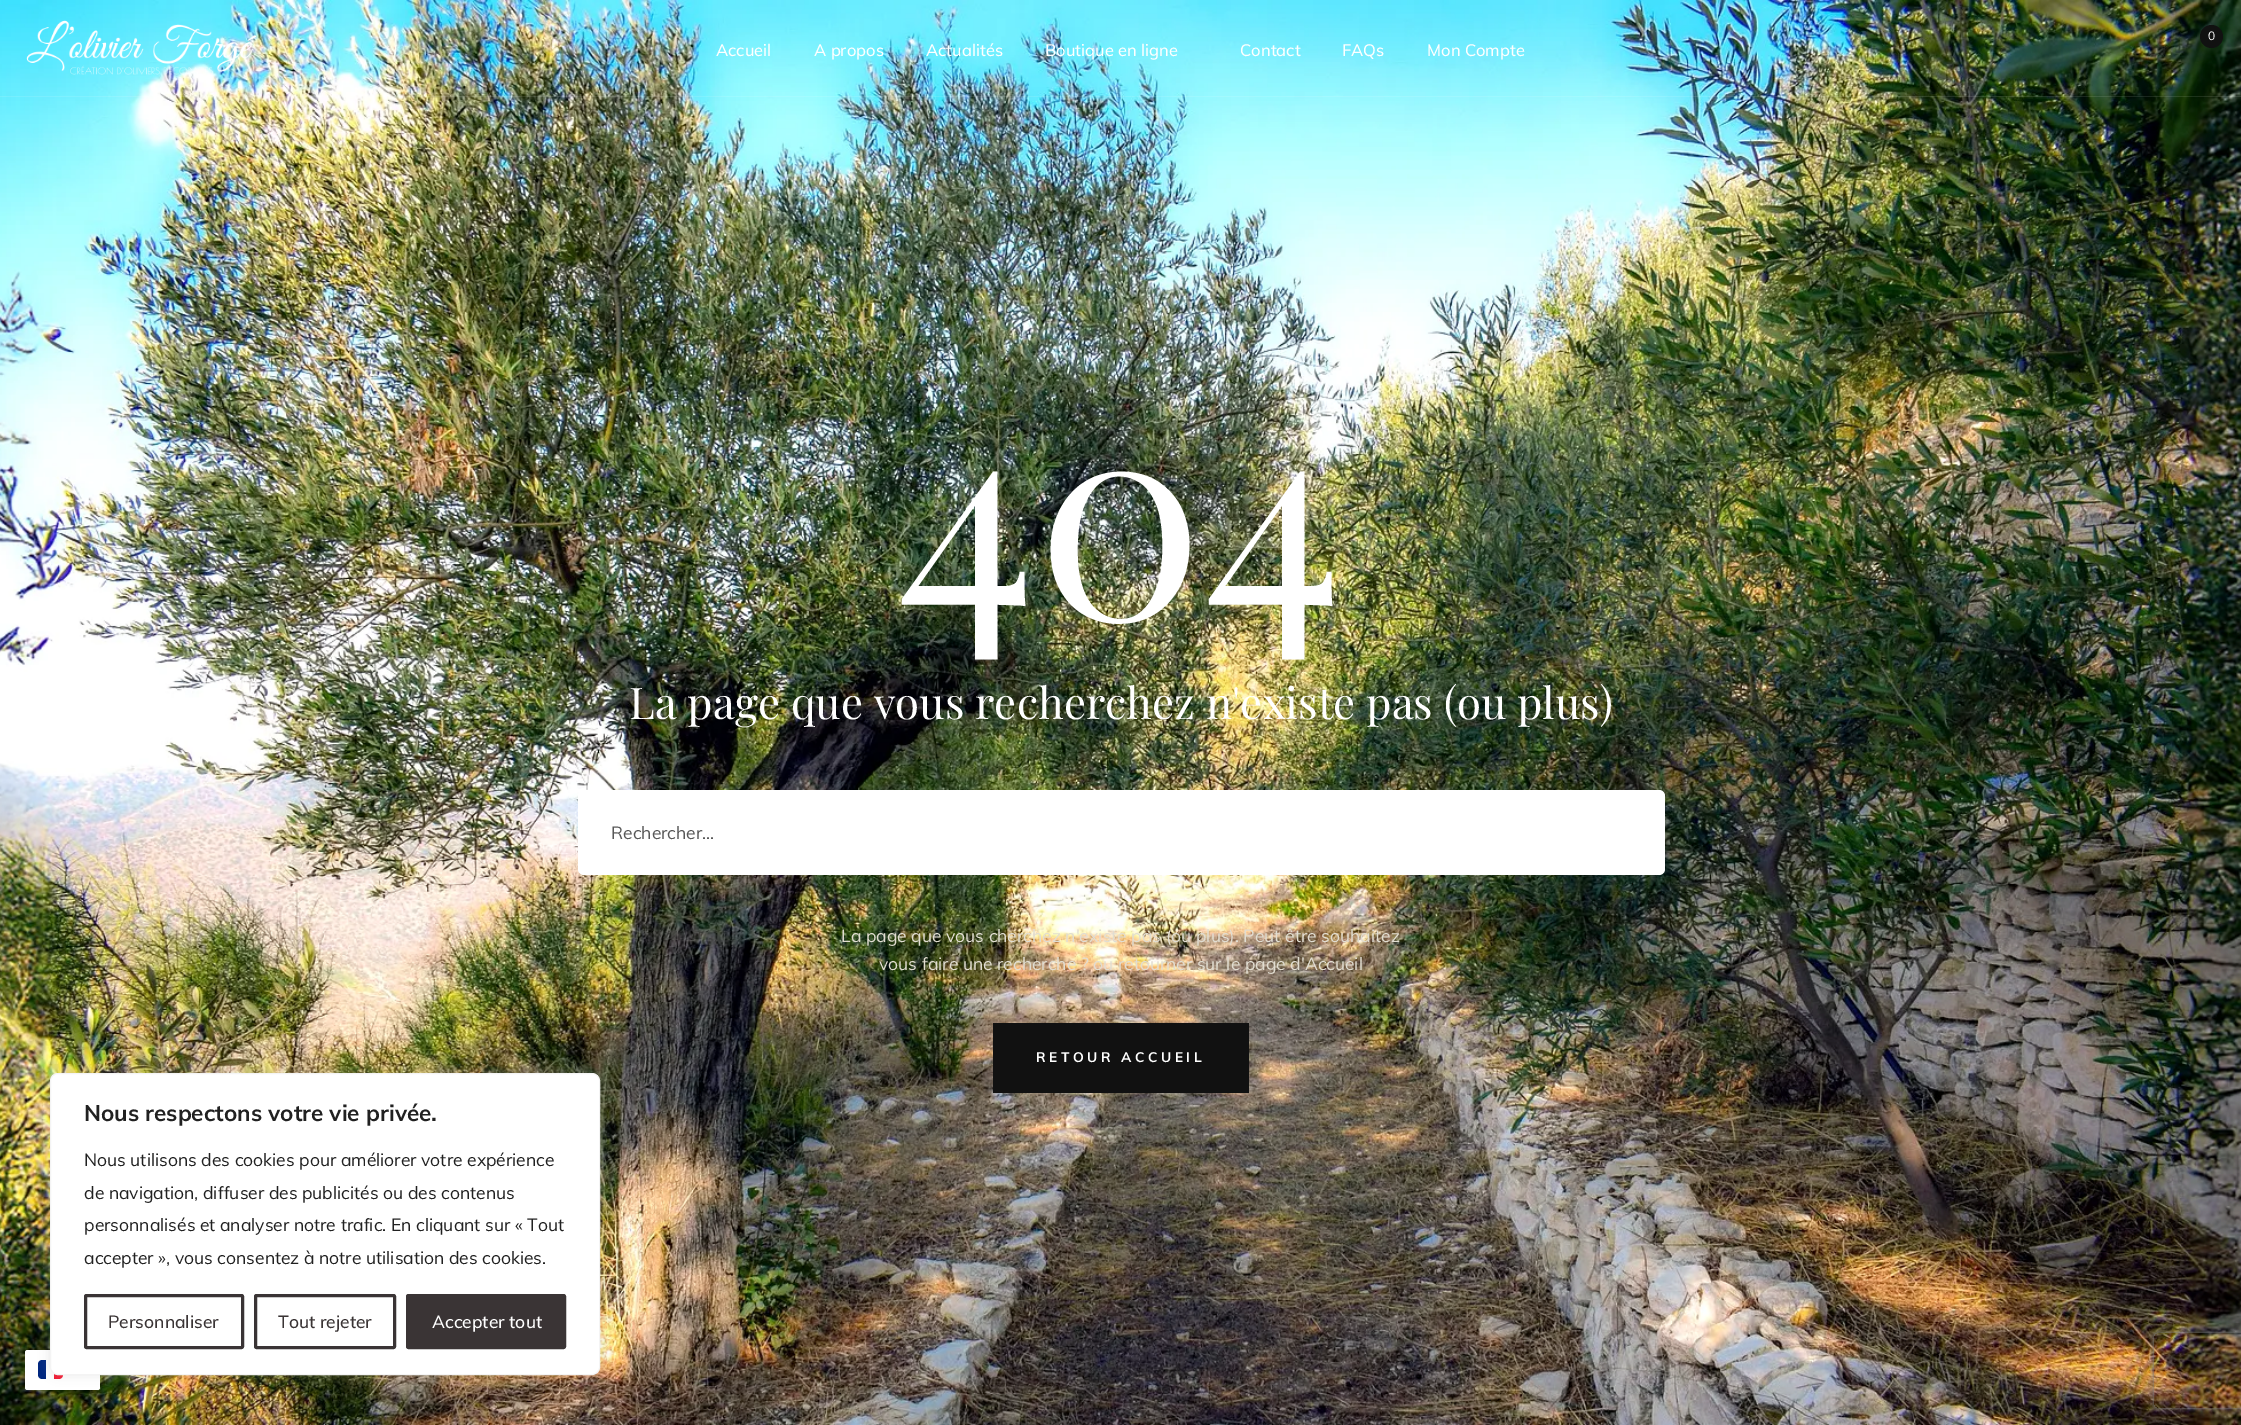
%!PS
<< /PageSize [2241 1425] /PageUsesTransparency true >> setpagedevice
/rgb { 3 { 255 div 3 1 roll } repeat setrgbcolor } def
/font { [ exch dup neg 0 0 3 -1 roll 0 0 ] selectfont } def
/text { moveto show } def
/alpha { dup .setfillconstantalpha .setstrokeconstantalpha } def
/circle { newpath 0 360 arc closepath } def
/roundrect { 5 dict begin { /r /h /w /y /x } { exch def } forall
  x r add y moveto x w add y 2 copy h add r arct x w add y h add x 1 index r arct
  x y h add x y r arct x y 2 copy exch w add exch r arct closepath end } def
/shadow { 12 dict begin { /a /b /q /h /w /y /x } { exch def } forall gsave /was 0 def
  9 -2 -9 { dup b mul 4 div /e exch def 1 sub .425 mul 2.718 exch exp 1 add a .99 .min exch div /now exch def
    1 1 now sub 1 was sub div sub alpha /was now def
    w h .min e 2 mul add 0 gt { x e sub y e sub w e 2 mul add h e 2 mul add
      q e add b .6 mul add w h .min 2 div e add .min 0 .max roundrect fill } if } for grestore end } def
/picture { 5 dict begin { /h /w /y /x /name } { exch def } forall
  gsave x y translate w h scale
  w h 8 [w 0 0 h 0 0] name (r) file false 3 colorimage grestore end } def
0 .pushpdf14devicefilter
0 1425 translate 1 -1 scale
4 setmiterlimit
255 255 255 rgb
0 0 2241 1425 rectfill
(img_02.rgb) 0 0 2241 1425 picture
0.1 alpha
0 96 2241 1 rectfill
1 alpha
(img_01.rgb) 26 20 231 55 picture
17 17 17 rgb
2211.5 36.5 11.5 circle fill
255 255 255 rgb
578 790 1087 85 6 roundrect fill
17 17 17 rgb
993 1023 256 70 rectfill
0 0 0 rgb
25 1356 75 40 2.5 9.5 0.15 shadow
255 255 255 rgb
25 1350 75 40 2.5 roundrect fill
0 38 127 rgb
42 1360 moveto 4 0 rlineto 0 19 rlineto -4 0 rlineto -2 0 -4 -2 -4 -4 rcurveto 0 -11 rlineto 0 -2 2 -4 4 -4 rcurveto closepath fill
243 24 48 rgb
54 1360 moveto 5 0 rlineto 2 0 4 2 4 4 rcurveto 0 11 rlineto 0 2 -2 4 -4 4 rcurveto -5 0 rlineto closepath fill
172 171 171 rgb
50 1071 550 303 8 6 0.3 shadow
255 255 255 rgb
50.5 1073.5 549 301 7.5 roundrect gsave fill grestore
244 244 244 rgb
stroke
58 52 53 rgb
3 setlinewidth
85.5 1295.5 157 52 1 roundrect stroke
255.5 1295.5 139 52 1 roundrect stroke
407.5 1295.5 157 52 1 roundrect gsave fill grestore
stroke
gsave
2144 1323 moveto 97 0 rlineto 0 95 rlineto -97 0 rlineto closepath 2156.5 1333 moveto 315 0 rlineto 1.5 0 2.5 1 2.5 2.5 rcurveto 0 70 rlineto 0 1.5 -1 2.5 -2.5 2.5 rcurveto -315 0 rlineto -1.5 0 -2.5 -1 -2.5 -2.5 rcurveto 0 -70 rlineto 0 -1.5 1 -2.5 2.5 -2.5 rcurveto closepath eoclip newpath
128 128 128 rgb
2154 1333 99 75 2.5 3 1 shadow
grestore
/Muli-Regular 12 font
255 255 255 rgb
(0) 2208 40 text
/Muli-Medium 16.5 font
(Accueil) 716 56 text
(A propos) 814 56 text
(Actualités) 926 56 text
(Boutique en ligne) 1045 56 text
(Contact) 1240 56 text
(FAQs) 1342 56 text
(Mon Compte) 1427 56 text
/PlayfairDisplay-Regular 281 font
(404) 897 620 text
/PlayfairDisplay-Regular 43.75 font
(La page que vous recherchez n'existe pas \(ou plus\)) 629 719 text
/Muli-Regular 17.5 font
88 88 88 rgb
(Rechercher...) 611 839 text
225 221 209 rgb
(La page que vous cherchez n'existe pas \(ou plus\). Peut être souhaitez) 841 942 text
(vous faire une recherche ? ou retourner sur le page d'Accueil) 879 970 text
/Muli-Bold 13.75 font
255 255 255 rgb
1036 1062 moveto 3.5 0 (RETOUR ACCUEIL) ashow
/Muli-Bold 22.5 font
33 33 33 rgb
(Nous respectons votre vie privée.) 84 1121 text
/Muli-Regular 17.5 font
(Nous utilisons des cookies pour améliorer votre expérience) 84 1166 text
(de navigation, diffuser des publicités ou des contenus) 84 1199 text
(personnalisés et analyser notre trafic. En cliquant sur « Tout) 84 1231 text
(accepter », vous consentez à notre utilisation des cookies.) 84 1264 text
/Muli-Medium 17.5 font
58 52 53 rgb
(Personnaliser) 108 1328 text
(Tout rejeter) 278 1328 text
255 255 255 rgb
(Accepter tout) 432 1328 text
.poppdf14devicefilter showpage
